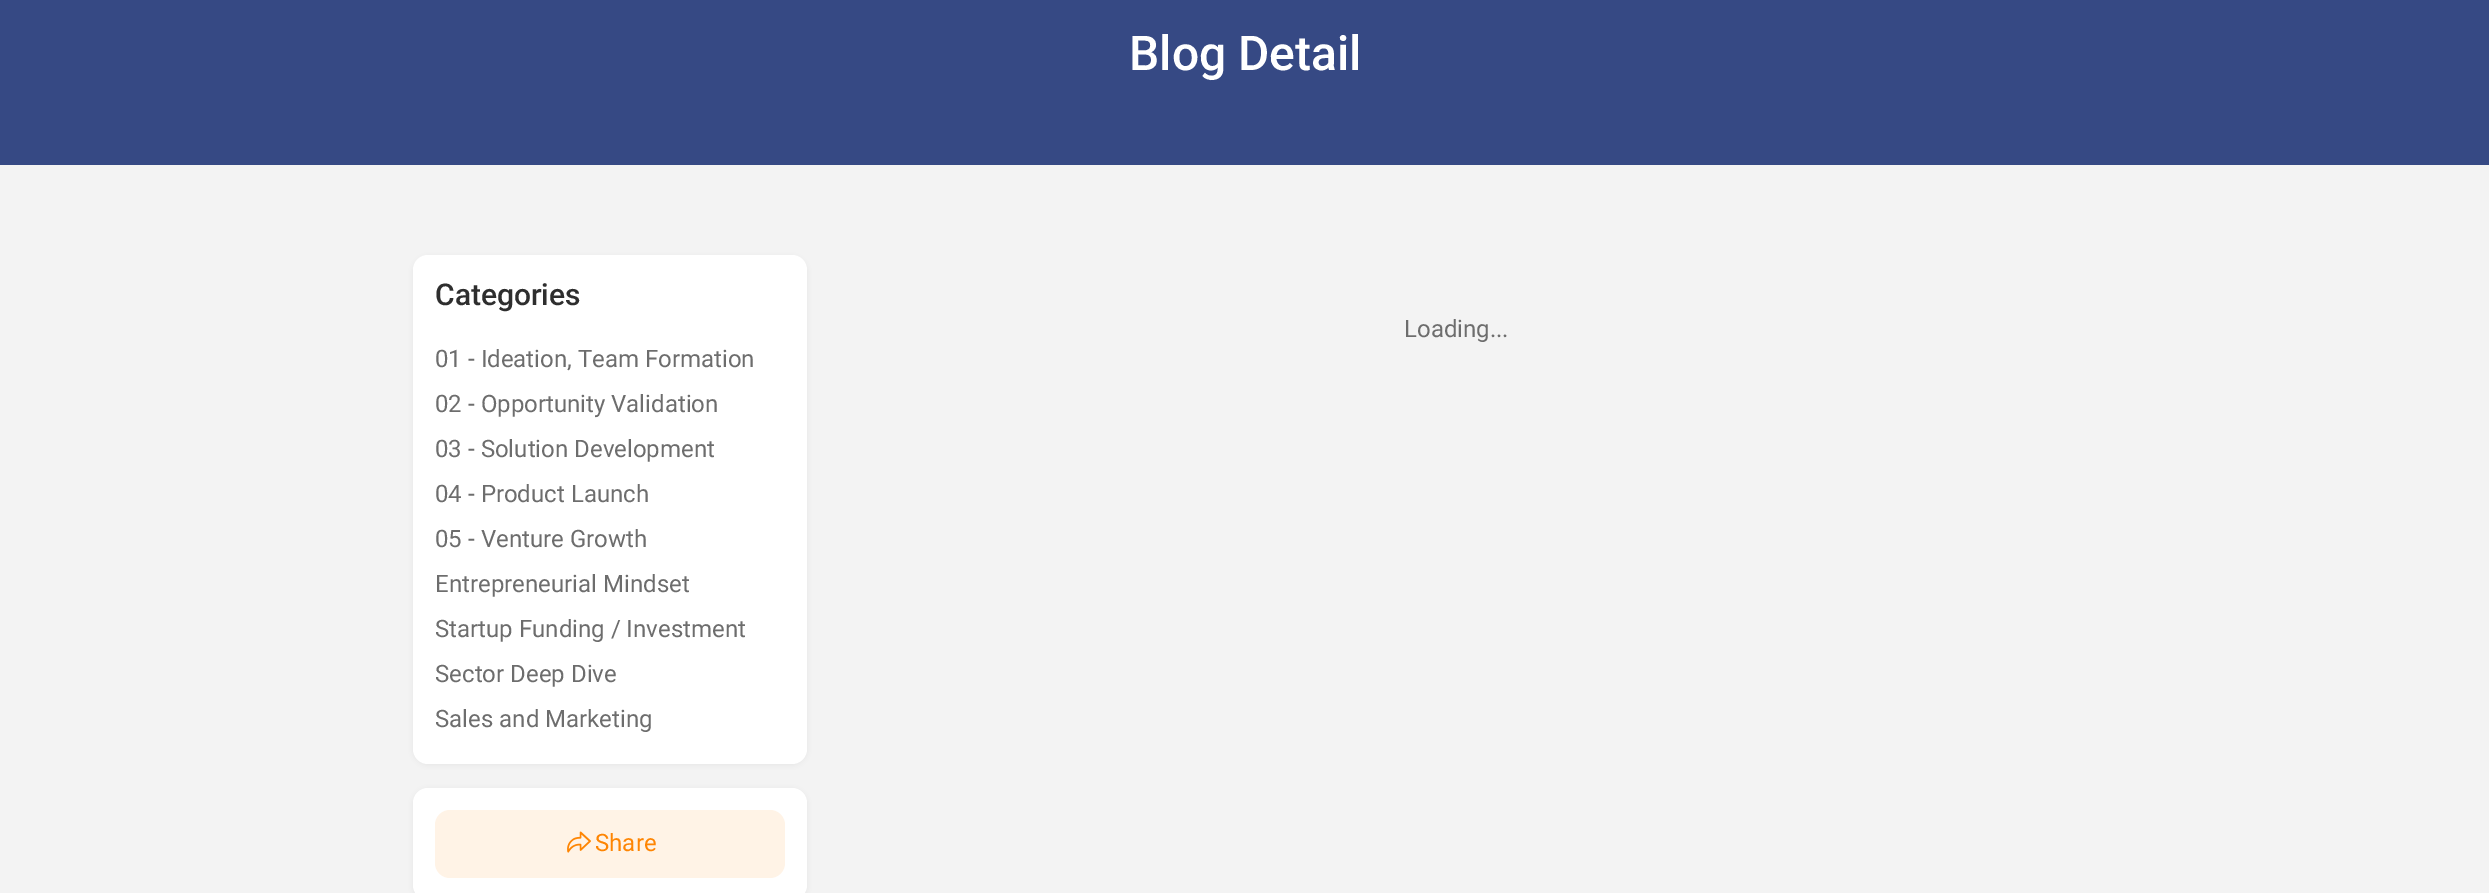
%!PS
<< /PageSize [2489 893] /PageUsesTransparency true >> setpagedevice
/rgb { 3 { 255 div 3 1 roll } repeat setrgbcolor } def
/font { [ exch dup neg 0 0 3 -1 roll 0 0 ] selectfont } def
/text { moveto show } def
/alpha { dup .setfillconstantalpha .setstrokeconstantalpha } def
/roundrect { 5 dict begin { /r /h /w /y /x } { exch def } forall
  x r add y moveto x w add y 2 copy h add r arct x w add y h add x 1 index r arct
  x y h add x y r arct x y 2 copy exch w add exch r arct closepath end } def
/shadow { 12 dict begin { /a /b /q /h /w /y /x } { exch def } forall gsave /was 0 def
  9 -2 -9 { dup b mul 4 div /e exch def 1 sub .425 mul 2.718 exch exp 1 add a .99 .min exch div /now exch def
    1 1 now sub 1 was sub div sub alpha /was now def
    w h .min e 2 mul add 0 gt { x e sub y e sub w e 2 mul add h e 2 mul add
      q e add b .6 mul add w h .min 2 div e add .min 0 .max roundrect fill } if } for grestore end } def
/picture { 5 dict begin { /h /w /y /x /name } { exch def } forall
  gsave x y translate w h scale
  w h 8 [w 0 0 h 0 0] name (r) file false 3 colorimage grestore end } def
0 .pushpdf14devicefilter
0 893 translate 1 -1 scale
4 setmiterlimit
243 243 243 rgb
0 0 2489 893 rectfill
54 73 132 rgb
0 0 2489 165 rectfill
0 0 0 rgb
413 257 394 508 15 3 0.05 shadow
255 255 255 rgb
413 255 394 509 15 roundrect fill
0 0 0 rgb
413 789 394 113 15 3 0.05 shadow
255 255 255 rgb
413 788 394 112 15 roundrect fill
255 243 230 rgb
435 810 350 68 15 roundrect fill
(img_01.rgb) 567 831 24 22 picture
/Roboto-Medium 48 font
255 255 255 rgb
(Blog Detail) 1129 70 text
/Roboto-Medium 30 font
46 46 46 rgb
(Categories) 435 305 text
/Roboto-Regular 24 font
109 109 109 rgb
(01 - Ideation, Team Formation) 435 367 text
(02 - Opportunity Validation) 435 412 text
(03 - Solution Development) 435 457 text
(04 - Product Launch) 435 502 text
(05 - Venture Growth) 435 547 text
(Entrepreneurial Mindset) 435 592 text
(Startup Funding / Investment) 435 637 text
(Sector Deep Dive) 435 682 text
(Sales and Marketing) 435 727 text
254 133 3 rgb
(Share) 595 851 text
109 109 109 rgb
(Loading...) 1404 337 text
.poppdf14devicefilter showpage
